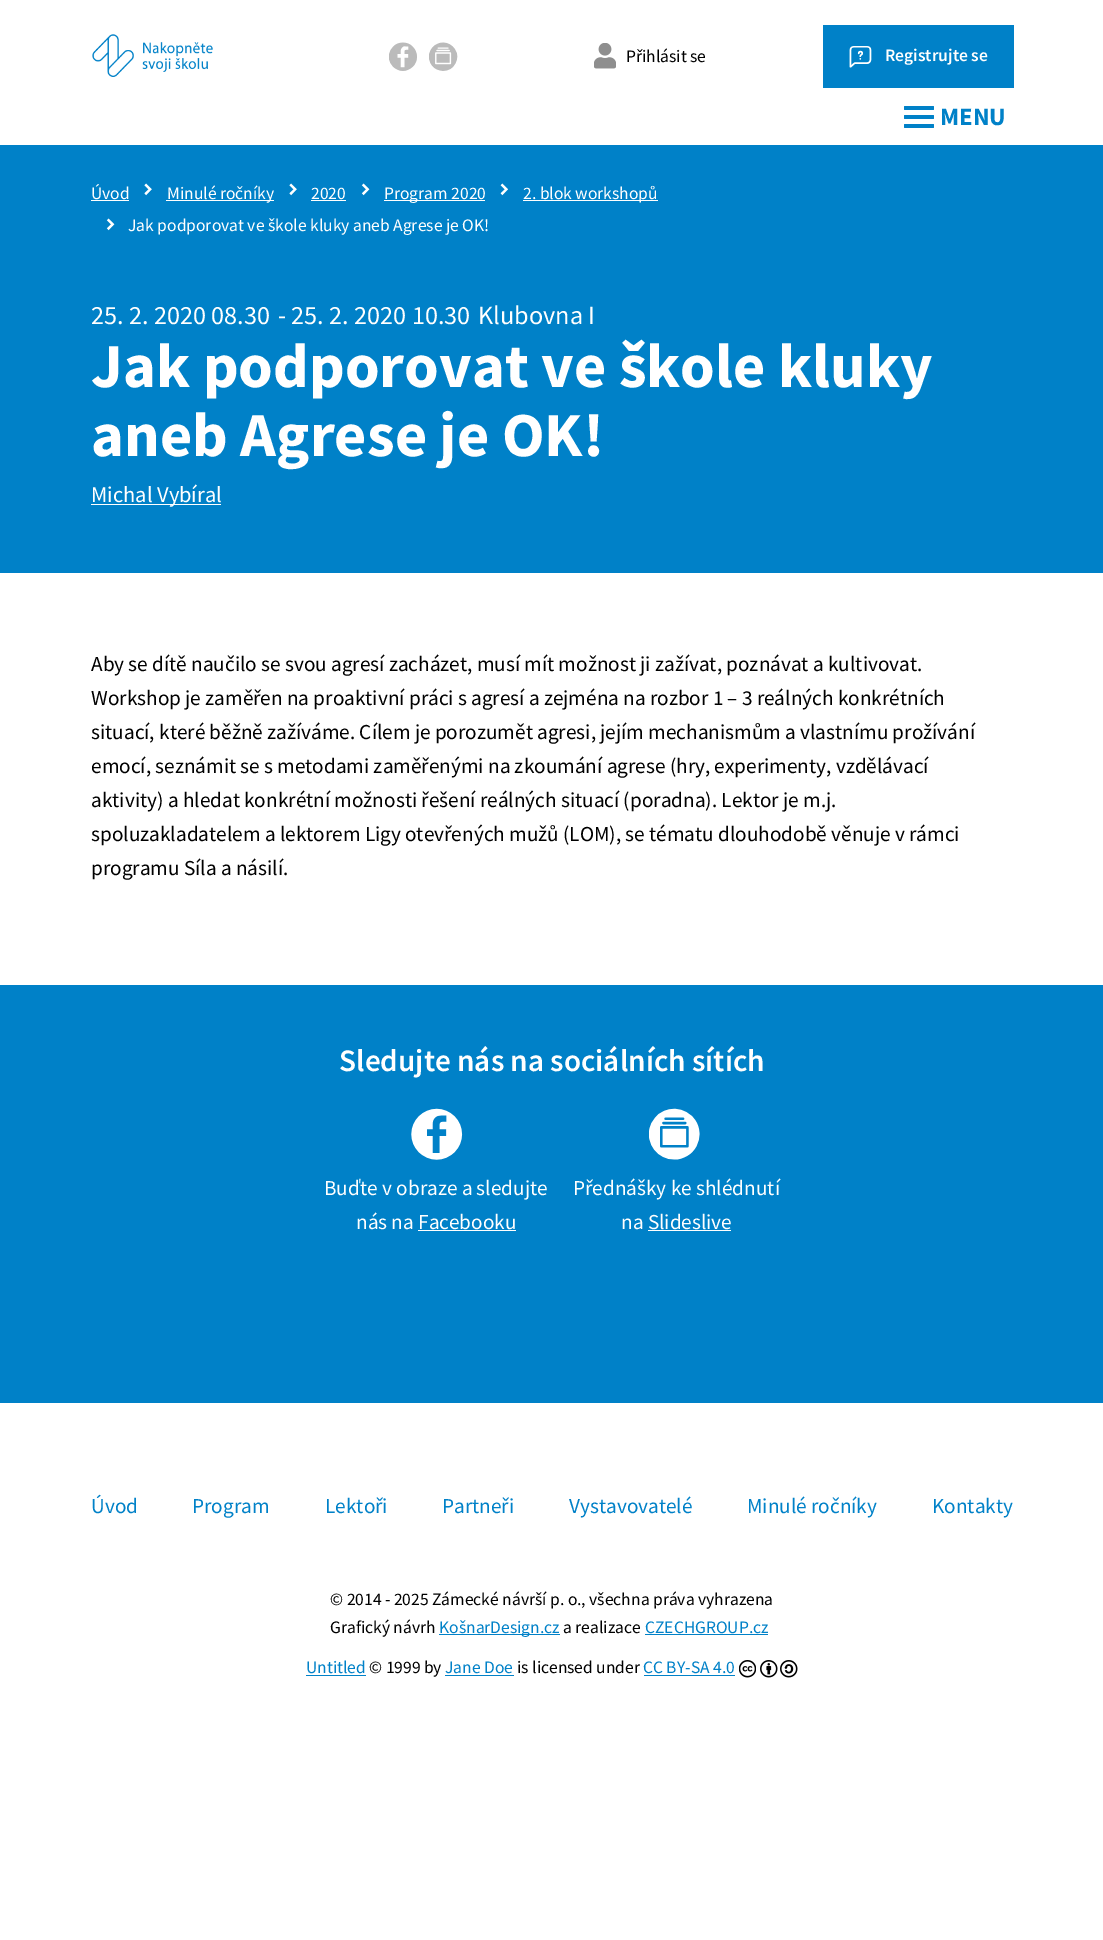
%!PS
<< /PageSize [1103 1940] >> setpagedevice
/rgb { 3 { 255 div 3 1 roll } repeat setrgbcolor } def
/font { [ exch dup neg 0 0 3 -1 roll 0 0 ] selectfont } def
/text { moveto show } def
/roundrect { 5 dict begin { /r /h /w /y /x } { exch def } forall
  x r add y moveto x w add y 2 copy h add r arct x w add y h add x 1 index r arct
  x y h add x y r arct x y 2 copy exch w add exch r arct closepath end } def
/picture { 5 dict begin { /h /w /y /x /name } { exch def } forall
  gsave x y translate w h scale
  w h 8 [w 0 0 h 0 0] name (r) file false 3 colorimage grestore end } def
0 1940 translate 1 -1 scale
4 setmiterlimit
255 255 255 rgb
0 0 1103 1940 rectfill
(img_01.rgb) 92 34 121 43 picture
(img_02.rgb) 389 42 28 29 picture
(img_03.rgb) 429 42 29 29 picture
(img_04.rgb) 594 43 22 26 picture
0 129 200 rgb
823 25 191 63 rectfill
(img_05.rgb) 849 46 23 22 picture
904 106 30 4 1 roundrect fill
904 115 30 4 1 roundrect fill
904 124 30 4 1 roundrect fill
0 145 1103 428 rectfill
255 255 255 rgb
91 200 38 1 rectfill
(img_06.rgb) 144 183 8 13 picture
166 200 108 1 rectfill
(img_06.rgb) 289 183 8 13 picture
311 200 35 1 rectfill
(img_07.rgb) 361 183 9 13 picture
384 200 101 1 rectfill
(img_08.rgb) 500 183 8 13 picture
523 200 135 1 rectfill
(img_07.rgb) 106 218 9 13 picture
91 504 130 1 rectfill
0 129 200 rgb
0 985 1103 418 rectfill
(img_09.rgb) 411 1108 52 52 picture
255 255 255 rgb
418 1230 98 1 rectfill
(img_10.rgb) 649 1108 51 52 picture
648 1230 83 1 rectfill
0 129 200 rgb
439 1634 121 1 rectfill
645 1634 123 1 rectfill
306 1675 60 1 rectfill
445 1675 69 1 rectfill
644 1675 91 1 rectfill
(img_11.rgb) 739 1660 17 18 picture
(img_12.rgb) 760 1660 18 18 picture
(img_13.rgb) 780 1660 18 18 picture
/SourceSansPro-Regular 17.5 font
0 0 0 rgb
(Přihlásit se) 626 62 text
/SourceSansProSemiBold-SemiBold 17.5 font
255 255 255 rgb
(Registrujte se) 885 61 text
/SourceSansPro-Bold 25 font
0 129 200 rgb
(MENU) 940 125 text
/SourceSansPro-Regular 17.5 font
255 255 255 rgb
(Úvod) 91 199 text
(Minulé ročníky) 167 199 text
(2020) 311 199 text
(Program 2020) 384 199 text
(2. blok workshopů) 523 199 text
(Jak podporovat ve škole kluky aneb Agrese je OK!) 128 231 text
/SourceSansPro-Regular 26.25 font
(25. 2. 2020 08.30) 91 324 text
(- 25. 2. 2020 10.30) 278 324 text
(Klubovna I) 478 324 text
/SourceSansPro-Bold 62.5 font
(Jak podporovat ve škole kluky) 91 387 text
(aneb Agrese je OK!) 91 456 text
/SourceSansPro-Regular 22.5 font
(Michal Vybíral) 91 502 text
/SourceSansPro-Regular 21.25 font
0 0 0 rgb
(Aby se dítě naučilo se svou agresí zacházet, musí mít možnost ji zažívat, poznávat a kultivovat.) 91 671 text
(Workshop je zaměřen na proaktivní práci s agresí a zejména na rozbor 1 – 3 reálných konkrétních) 91 705 text
(situací, které běžně zažíváme. Cílem je porozumět agresi, jejím mechanismům a vlastnímu prožívání) 91 739 text
(emocí, seznámit se s metodami zaměřenými na zkoumání agrese \(hry, experimenty, vzdělávací) 91 773 text
(aktivity\) a hledat konkrétní možnosti řešení reálných situací \(poradna\). Lektor je m.j.) 91 807 text
(spoluzakladatelem a lektorem Ligy otevřených mužů \(LOM\), se tématu dlouhodobě věnuje v rámci) 91 841 text
(programu Síla a násilí.) 91 875 text
/SourceSansProSemiBold-SemiBold 31.25 font
255 255 255 rgb
(Sledujte nás na sociálních sítích) 339 1071 text
/SourceSansPro-Regular 21.25 font
(Buďte v obraze a sledujte) 324 1195 text
(nás na Facebooku) 356 1229 text
(Přednášky ke shlédnutí) 573 1195 text
(na Slideslive) 621 1229 text
0 129 200 rgb
(Úvod) 91 1513 text
(Program) 192 1513 text
(Lektoři) 325 1513 text
(Partneři) 442 1513 text
(Vystavovatelé) 569 1513 text
(Minulé ročníky) 747 1513 text
(Kontakty) 932 1513 text
/SourceSansPro-Regular 17.5 font
0 0 0 rgb
(© 2014 - 2025 Zámecké návrší p. o., všechna práva vyhrazena) 330 1605 text
(Grafický návrh) 330 1633 text
0 129 200 rgb
(KošnarDesign.cz) 439 1633 text
0 0 0 rgb
(a realizace) 563 1633 text
0 129 200 rgb
(CZECHGROUP.cz) 645 1633 text
(Untitled) 306 1673 text
0 0 0 rgb
(© 1999 by) 369 1673 text
0 129 200 rgb
(Jane Doe) 445 1673 text
0 0 0 rgb
(is licensed under) 517 1673 text
0 129 200 rgb
(CC BY-SA 4.0) 643 1673 text
showpage
